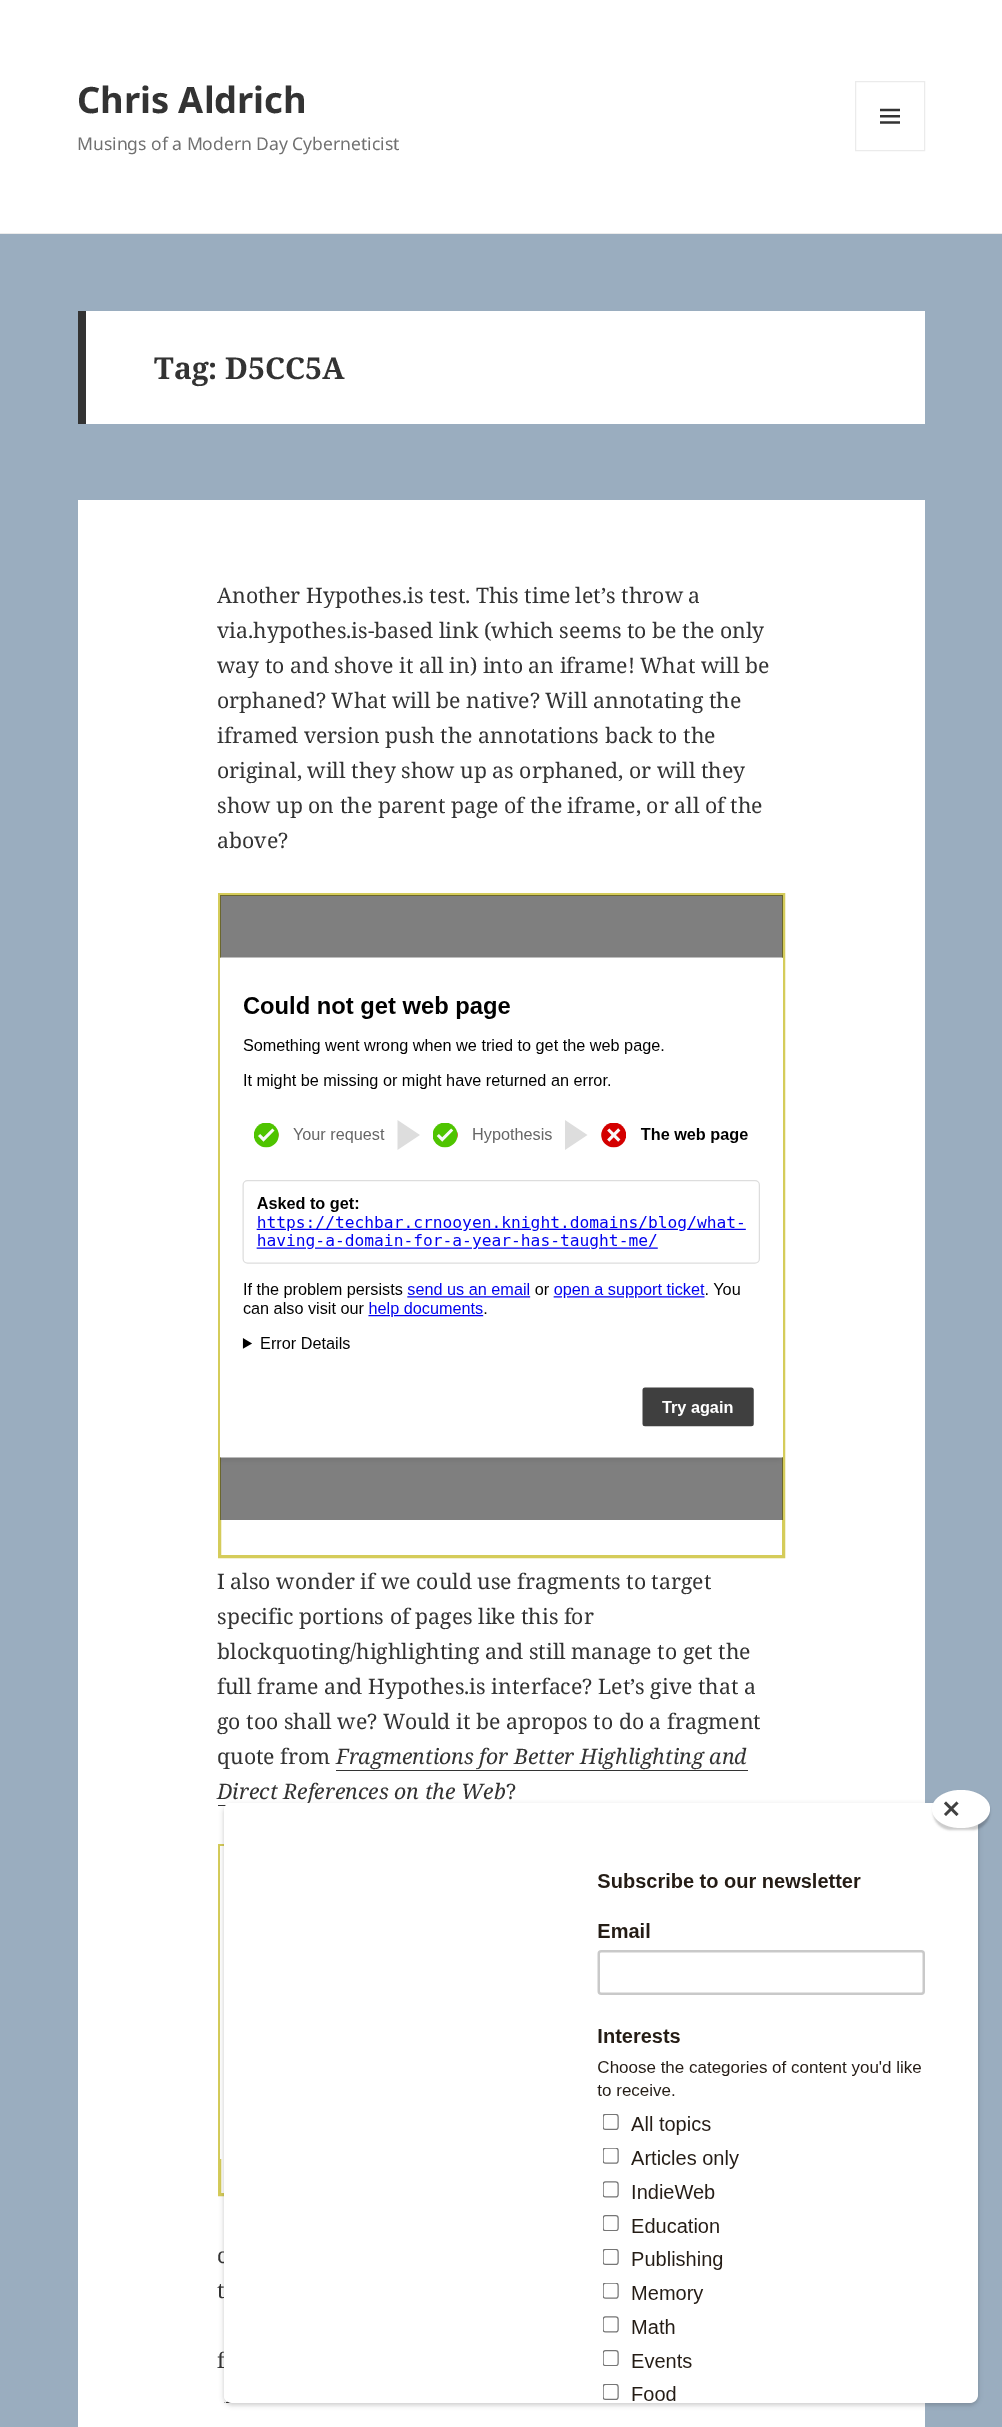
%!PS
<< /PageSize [1002 2427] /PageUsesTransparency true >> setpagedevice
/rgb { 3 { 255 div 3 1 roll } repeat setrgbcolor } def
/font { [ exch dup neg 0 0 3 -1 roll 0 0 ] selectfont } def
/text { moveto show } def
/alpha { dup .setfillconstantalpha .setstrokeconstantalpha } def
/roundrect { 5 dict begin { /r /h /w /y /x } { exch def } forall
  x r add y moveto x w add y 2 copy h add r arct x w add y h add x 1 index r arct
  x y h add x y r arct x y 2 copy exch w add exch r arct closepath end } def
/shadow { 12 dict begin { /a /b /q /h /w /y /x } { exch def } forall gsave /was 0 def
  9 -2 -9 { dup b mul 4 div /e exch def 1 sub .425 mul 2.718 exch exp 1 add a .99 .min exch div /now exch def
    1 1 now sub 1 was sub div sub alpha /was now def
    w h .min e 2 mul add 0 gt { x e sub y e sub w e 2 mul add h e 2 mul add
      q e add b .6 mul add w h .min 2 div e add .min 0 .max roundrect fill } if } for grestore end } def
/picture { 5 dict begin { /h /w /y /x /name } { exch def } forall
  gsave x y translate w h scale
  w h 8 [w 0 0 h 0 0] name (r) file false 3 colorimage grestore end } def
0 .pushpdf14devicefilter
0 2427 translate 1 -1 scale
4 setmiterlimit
154 173 191 rgb
0 0 1002 2427 rectfill
255 255 255 rgb
0 0 1002 233 rectfill
235 235 235 rgb
0 233 1002 1 rectfill
855.5 81.5 69 69 rectstroke
(img_01.rgb) 880 108 20 16 picture
255 255 255 rgb
86 311 839 113 rectfill
51 51 51 rgb
78 311 8 113 rectfill
255 255 255 rgb
78 500 847 1927 rectfill
213 204 90 rgb
3 setlinewidth
219.5 894.5 564 662 rectstroke
(img_02.rgb) 220 895 563 625 picture
51 51 51 rgb
336 1770 412 1 rectfill
218 1805 8 1 rectfill
213 204 90 rgb
219.5 1845.5 564 349 rectstroke
(img_03.rgb) 220 1846 4 313 picture
0 0 0 rgb
224 1805 754 600 8 2.5 0.2 shadow
/NotoSans-Bold 36.25 font
51 51 51 rgb
(Chris Aldrich) 77 113 text
/NotoSans-Regular 17.5 font
112 112 112 rgb
(Musings of a Modern Day Cyberneticist) 77 150 text
/NotoSerif-Bold 30 font
51 51 51 rgb
(Tag: D5CC5A) 154 379 text
/NotoSerif-Regular 21.25 font
(Another Hypothes.is test. This time let’s throw a) 217 603 text
(via.hypothes.is-based link \(which seems to be the only) 217 638 text
(way to and shove it all in\) into an iframe! What will be) 217 673 text
(orphaned? What will be native? Will annotating the) 217 708 text
(iframed version push the annotations back to the) 217 743 text
(original, will they show up as orphaned, or will they) 217 778 text
(show up on the parent page of the iframe, or all of the) 217 813 text
(above?) 217 848 text
(I also wonder if we could use fragments to target) 217 1589 text
(specific portions of pages like this for) 217 1624 text
(blockquoting/highlighting and still manage to get the) 217 1659 text
(full frame and Hypothes.is interface? Let’s give that a) 217 1694 text
(go too shall we? Would it be apropos to do a fragment) 217 1729 text
(quote from) 217 1764 text
/NotoSerif-Italic 21.25 font
(Fragmentions for Better Highlighting and) 336 1764 text
(Direct References on the Web) 217 1799 text
/NotoSerif-Regular 21.25 font
(?) 506 1799 text
(c) 217 2263 text
(t) 217 2298 text
(f) 217 2368 text
255 255 255 rgb
224 1803 754 600 8 roundrect fill
(img_04.rgb) 224 1803 754 600 picture
0 0 0 rgb
933 1793 57 37 18.5 1 0.2 shadow
255 255 255 rgb
961 1790 moveto 16 0 29 8.5 29 19 rcurveto 0 10.5 -13 19 -29 19 rcurveto -16 0 -29 -8.5 -29 -19 rcurveto 0 -10.5 13 -19 29 -19 rcurveto closepath fill
65 65 65 rgb
956.5 1801.5 moveto 2 2 rlineto -12.5 12.5 rlineto -2 -2 rlineto closepath fill
944 1803.5 moveto 2 -2 rlineto 12.5 12.5 rlineto -2 2 rlineto closepath fill
.poppdf14devicefilter showpage
